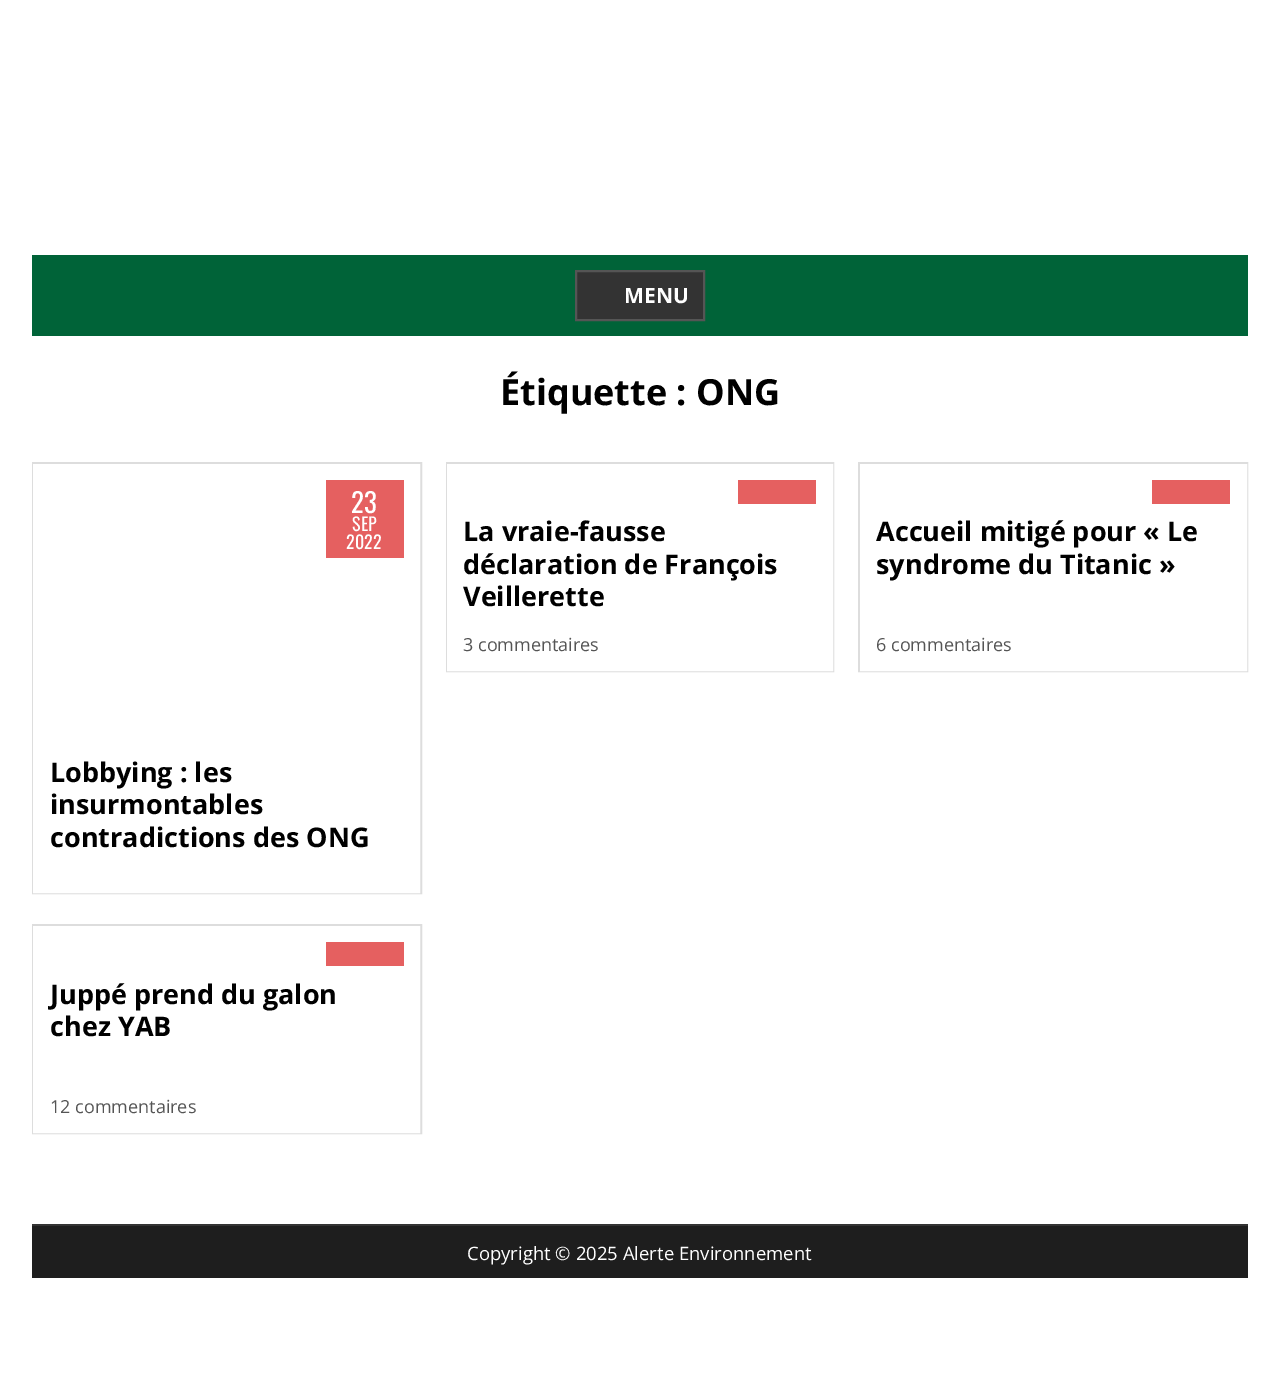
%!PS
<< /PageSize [1279 1380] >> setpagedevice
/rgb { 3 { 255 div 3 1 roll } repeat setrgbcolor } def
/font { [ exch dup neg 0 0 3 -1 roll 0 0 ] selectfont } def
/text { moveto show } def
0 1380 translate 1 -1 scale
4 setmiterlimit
255 255 255 rgb
0 0 1279 1380 rectfill
0 99 56 rgb
32 255 1216 81 rectfill
51 51 51 rgb
576 271 moveto 128 0 rlineto 0 49 rlineto -128 0 rlineto closepath gsave fill grestore
85 85 85 rgb
2 setlinewidth
stroke
221 221 221 rgb
33 463 388 430 rectstroke
255 255 255 rgb
34 465 385 427 rectstroke
229 96 96 rgb
326 480 78 78 rectfill
221 221 221 rgb
447 463 386 208 rectstroke
255 255 255 rgb
448 465 384 205 rectstroke
229 96 96 rgb
738 480 78 24 rectfill
221 221 221 rgb
859 463 388 208 rectstroke
255 255 255 rgb
861 465 385 205 rectstroke
229 96 96 rgb
1152 480 78 24 rectfill
221 221 221 rgb
33 925 388 208 rectstroke
255 255 255 rgb
34 927 385 205 rectstroke
229 96 96 rgb
326 942 78 24 rectfill
30 30 30 rgb
32 1226 1216 52 rectfill
51 51 51 rgb
32 1224 1216 2 rectfill
/OpenSans-Bold 21 font
255 255 255 rgb
(MENU) 624 303 text
/OpenSans-Bold 36 font
0 0 0 rgb
(Étiquette : ONG) 500 405 text
/Oswald-Regular 27 font
255 255 255 rgb
(23) 351 513 text
/Oswald-Regular 18 font
(SEP) 352 531 text
(2022) 346 549 text
/OpenSans-Bold 27 font
0 0 0 rgb
(Lobbying : les) 50 782 text
(insurmontables) 50 814 text
(contradictions des ONG) 50 847 text
(La vraie-fausse) 463 541 text
(déclaration de François) 463 574 text
(Veillerette) 463 606 text
/OpenSans-Regular 18 font
85 85 85 rgb
(3 commentaires) 463 651 text
/OpenSans-Bold 27 font
0 0 0 rgb
(Accueil mitigé pour « Le) 876 541 text
(syndrome du Titanic ») 876 574 text
/OpenSans-Regular 18 font
85 85 85 rgb
(6 commentaires) 876 651 text
/OpenSans-Bold 27 font
0 0 0 rgb
(Juppé prend du galon) 50 1004 text
(chez YAB) 50 1036 text
/OpenSans-Regular 18 font
85 85 85 rgb
(12 commentaires) 50 1113 text
/OpenSans-Regular 18.5 font
255 255 255 rgb
(Copyright © 2025 Alerte Environnement) 467 1260 text
showpage
